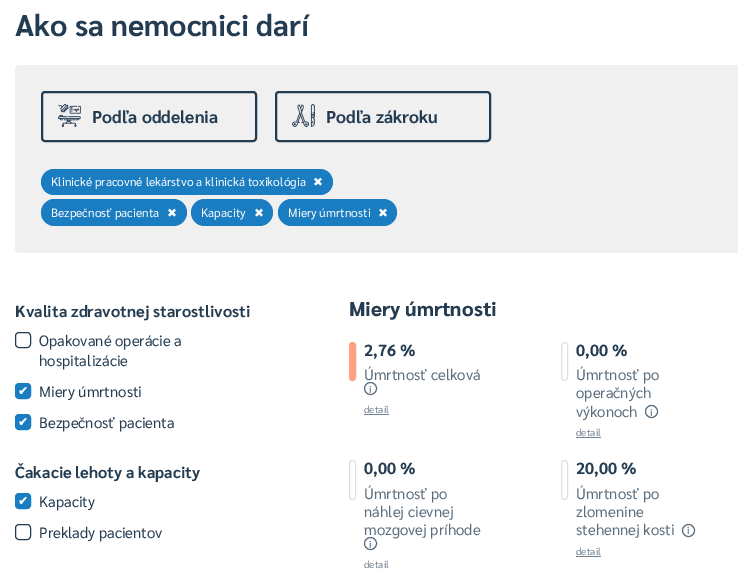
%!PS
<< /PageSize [738 569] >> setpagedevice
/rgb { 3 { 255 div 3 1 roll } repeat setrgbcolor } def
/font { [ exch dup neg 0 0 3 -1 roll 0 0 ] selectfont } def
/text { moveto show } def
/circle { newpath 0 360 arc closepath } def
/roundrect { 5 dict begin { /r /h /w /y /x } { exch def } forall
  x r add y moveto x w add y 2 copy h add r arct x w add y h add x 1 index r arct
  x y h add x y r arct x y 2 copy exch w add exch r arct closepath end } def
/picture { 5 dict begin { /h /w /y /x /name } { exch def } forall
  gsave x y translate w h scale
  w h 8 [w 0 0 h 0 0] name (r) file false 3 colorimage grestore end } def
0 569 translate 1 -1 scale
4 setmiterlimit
255 255 255 rgb
0 0 738 569 rectfill
240 240 240 rgb
15 65 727 188 4 roundrect fill
36 60 81 rgb
2 setlinewidth
42 92 214 49 3 roundrect stroke
(img_01.rgb) 58 104 23 23 picture
276 92 214 49 3 roundrect stroke
(img_02.rgb) 292 104 23 23 picture
27 125 193 rgb
41 169 292 26 13 roundrect fill
41 199 146 27 13.5 roundrect fill
191 199 82 27 13.5 roundrect fill
278 199 119 27 13.5 roundrect fill
36 60 81 rgb
1 setlinewidth
15.5 332.5 15 15 3.5 roundrect stroke
27 125 193 rgb
15.5 383.5 15 15 3.5 roundrect gsave fill grestore
stroke
15.5 414.5 15 15 3.5 roundrect gsave fill grestore
stroke
15.5 493.5 15 15 3.5 roundrect gsave fill grestore
stroke
36 60 81 rgb
15.5 524.5 15 15 3.5 roundrect stroke
255 160 130 rgb
349.5 342.5 6 38 3 roundrect gsave fill grestore
stroke
91 109 125 rgb
370.5 388.5 6 circle stroke
113 128 142 rgb
364 414 25 1 rectfill
224 224 224 rgb
561.5 342.5 6 38 3 roundrect stroke
91 109 125 rgb
651.5 411.5 6 circle stroke
113 128 142 rgb
576 437 25 1 rectfill
224 224 224 rgb
349.5 460.5 6 39 3 roundrect stroke
91 109 125 rgb
370.5 543.5 6 circle stroke
224 224 224 rgb
561.5 460.5 6 39 3 roundrect stroke
91 109 125 rgb
688.5 530.5 6 circle stroke
113 128 142 rgb
576 556 25 1 rectfill
/Sarabun-Bold 30 font
36 60 81 rgb
(Ako sa nemocnici darí) 15 36 text
/Sarabun-Bold 17.25 font
(Podľa oddelenia) 92 123 text
(Podľa zákroku) 326 123 text
/Sarabun-Regular 12 font
255 255 255 rgb
(Klinické pracovné lekárstvo a klinická toxikológia) 51 186 text
/DejaVuSans-Regular 12 font
(✖) 313 186 text
/Sarabun-Regular 12 font
(Bezpečnosť pacienta) 51 217 text
/DejaVuSans-Regular 12 font
(✖) 167 217 text
/Sarabun-Regular 12 font
(Kapacity) 201 217 text
/DejaVuSans-Regular 12 font
(✖) 254 217 text
/Sarabun-Regular 12 font
(Miery úmrtnosti) 288 217 text
/DejaVuSans-Regular 12 font
(✖) 378 217 text
/Sarabun-Bold 16.1 font
36 60 81 rgb
(Kvalita zdravotnej starostlivosti) 15 317 text
/Sarabun-Regular 15 font
(Opakované operácie a) 39 346 text
(hospitalizácie) 39 366 text
/DejaVuSans-Bold 12 font
255 255 255 rgb
(✔) 18 395 text
/Sarabun-Regular 15 font
36 60 81 rgb
(Miery úmrtnosti) 39 397 text
/DejaVuSans-Bold 12 font
255 255 255 rgb
(✔) 18 426 text
/Sarabun-Regular 15 font
36 60 81 rgb
(Bezpečnosť pacienta) 39 428 text
/Sarabun-Bold 16.1 font
(Čakacie lehoty a kapacity) 15 478 text
/DejaVuSans-Bold 12 font
255 255 255 rgb
(✔) 18 505 text
/Sarabun-Regular 15 font
36 60 81 rgb
(Kapacity) 39 507 text
(Preklady pacientov) 39 538 text
/Sarabun-ExtraBold 20 font
(Miery úmrtnosti) 349 316 text
/Sarabun-Bold 16.1 font
(2,76 %) 364 356 text
/Sarabun-Regular 15 font
91 109 125 rgb
(Úmrtnosť celková) 364 380 text
/Sarabun-Medium 10 font
(i) 369 393 text
/Sarabun-Regular 10 font
113 128 142 rgb
(detail) 364 413 text
/Sarabun-Bold 16.1 font
36 60 81 rgb
(0,00 %) 576 356 text
/Sarabun-Regular 15 font
91 109 125 rgb
(Úmrtnosť po) 576 380 text
(operačných) 576 398 text
(výkonoch) 576 417 text
/Sarabun-Medium 10 font
(i) 650 416 text
/Sarabun-Regular 10 font
113 128 142 rgb
(detail) 576 436 text
/Sarabun-Bold 16.1 font
36 60 81 rgb
(0,00 %) 364 474 text
/Sarabun-Regular 15 font
91 109 125 rgb
(Úmrtnosť po) 364 499 text
(náhlej cievnej) 364 517 text
(mozgovej príhode) 364 535 text
/Sarabun-Medium 10 font
(i) 369 548 text
/Sarabun-Regular 10 font
113 128 142 rgb
(detail) 364 568 text
/Sarabun-Bold 16.1 font
36 60 81 rgb
(20,00 %) 576 474 text
/Sarabun-Regular 15 font
91 109 125 rgb
(Úmrtnosť po) 576 499 text
(zlomenine) 576 517 text
(stehennej kosti) 576 535 text
/Sarabun-Medium 10 font
(i) 687 534 text
/Sarabun-Regular 10 font
113 128 142 rgb
(detail) 576 555 text
showpage
